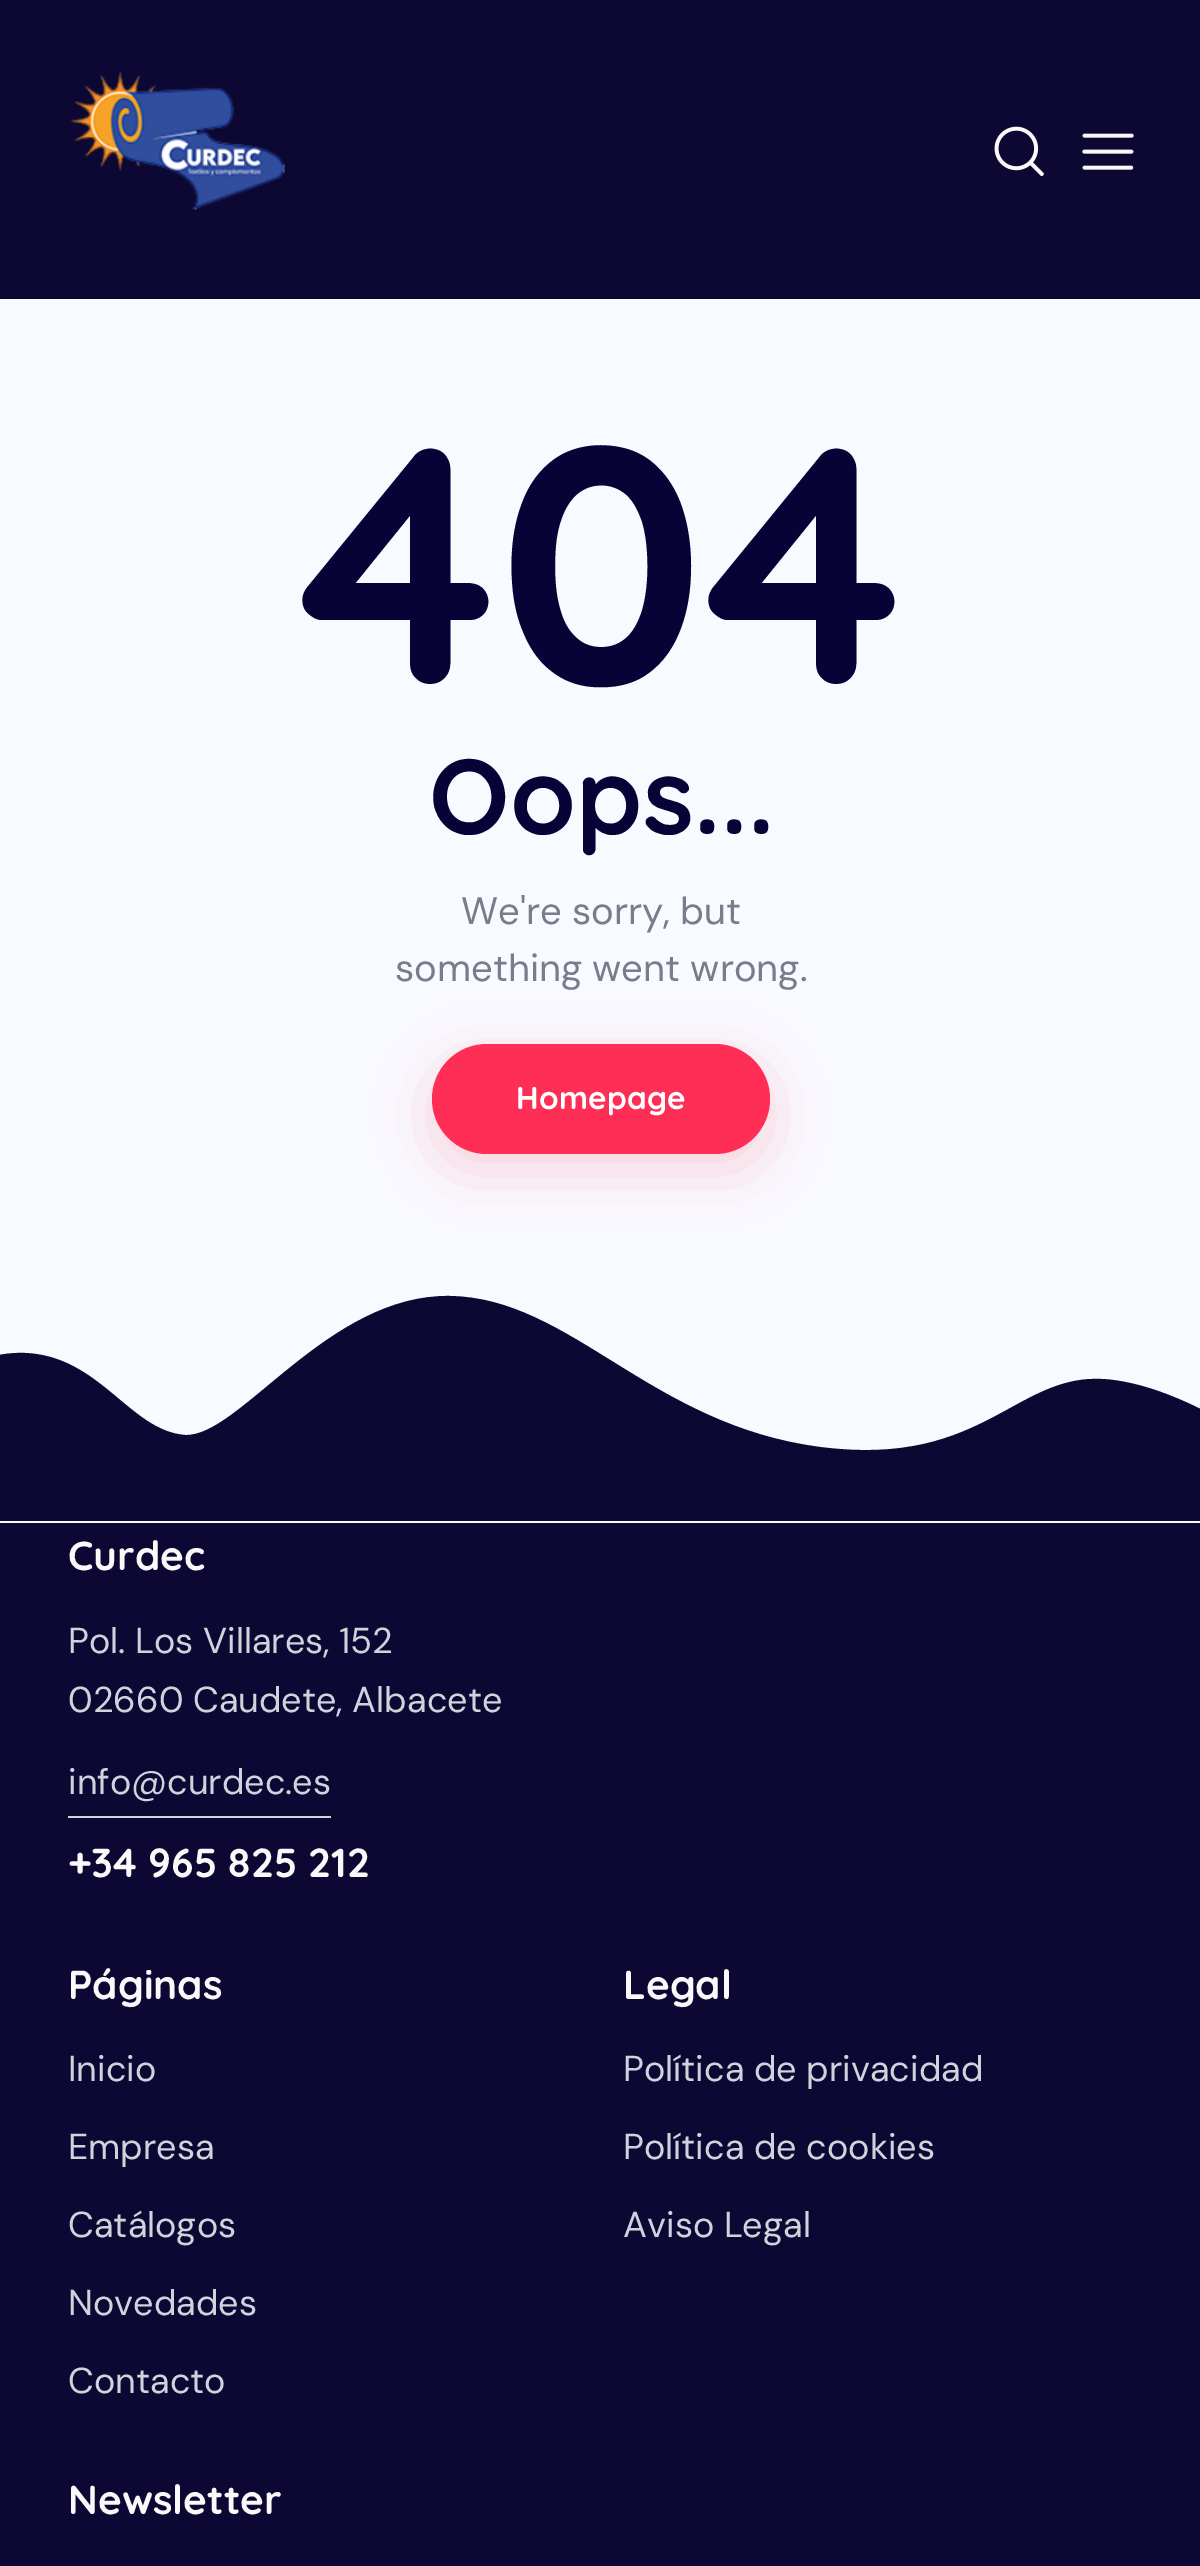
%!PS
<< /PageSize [1200 2566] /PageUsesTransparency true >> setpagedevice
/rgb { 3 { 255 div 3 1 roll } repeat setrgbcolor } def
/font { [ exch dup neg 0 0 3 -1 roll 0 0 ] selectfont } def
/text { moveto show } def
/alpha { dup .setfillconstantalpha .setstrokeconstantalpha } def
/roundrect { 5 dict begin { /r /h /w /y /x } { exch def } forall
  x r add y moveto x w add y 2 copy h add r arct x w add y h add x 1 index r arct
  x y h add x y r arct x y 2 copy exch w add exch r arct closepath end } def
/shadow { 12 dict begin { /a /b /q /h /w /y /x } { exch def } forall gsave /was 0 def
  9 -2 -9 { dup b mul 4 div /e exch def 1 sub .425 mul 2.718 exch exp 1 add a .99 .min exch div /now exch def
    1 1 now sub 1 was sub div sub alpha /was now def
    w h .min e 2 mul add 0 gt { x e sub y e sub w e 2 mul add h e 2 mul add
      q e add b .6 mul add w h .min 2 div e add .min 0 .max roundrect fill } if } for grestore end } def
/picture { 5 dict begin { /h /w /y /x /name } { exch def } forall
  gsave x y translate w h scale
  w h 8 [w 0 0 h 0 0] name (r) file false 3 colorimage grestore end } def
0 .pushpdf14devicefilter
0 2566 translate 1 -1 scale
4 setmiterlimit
249 250 255 rgb
0 0 1200 2566 rectfill
12 8 51 rgb
0 0 1200 299 rectfill
(img_01.rgb) 70 71 215 139 picture
(img_02.rgb) 994 126 50 50 picture
(img_03.rgb) 1082 133 52 37 picture
255 46 87 rgb
432 1060 338 110 55 28 0.2 shadow
432 1044 338 110 55 roundrect fill
12 8 51 rgb
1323 1490 moveto 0 0 -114 -98 -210 -110 rcurveto -96 -13 -124 89 -293 67 rcurveto -170 -22 -249 -149 -370 -151 rcurveto -122 -2 -211 142 -265 139 rcurveto -55 -4 -85 -79 -160 -82 rcurveto -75 -3 -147 73 -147 73 rcurveto 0 95 rlineto 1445 0 rlineto closepath fill
0 1523 1200 1043 rectfill
208 211 220 rgb
68 1816 263 2 rectfill
/Quicksand-Bold 338 font
8 3 55 rgb
(404) 299 684 text
/Quicksand-Bold 106 font
429 834 moveto 0.25 0 (Oops...) ashow
/DMSans-Regular 38.25 font
120 124 139 rgb
(We're sorry, but) 461 924 text
(something went wrong.) 395 981 text
/Quicksand-Bold 31.5 font
255 255 255 rgb
516 1109 moveto 0.25 0 (Homepage) ashow
/Quicksand-Bold 40.5 font
249 249 249 rgb
(Curdec) 68 1570 text
/DMSans-Regular 36 font
208 211 220 rgb
(Pol. Los Villares, 152) 68 1653 text
(02660 Caudete, Albacete) 68 1712 text
(info@curdec.es) 68 1794 text
/Quicksand-Bold 40.5 font
249 249 249 rgb
(+34 965 825 212) 68 1877 text
(Páginas) 68 1999 text
/DMSans-Regular 36 font
208 211 220 rgb
(Inicio) 68 2081 text
(Empresa) 68 2159 text
(Catálogos) 68 2237 text
(Novedades) 68 2315 text
(Contacto) 68 2393 text
/Quicksand-Bold 40.5 font
249 249 249 rgb
(Legal) 623 1999 text
/DMSans-Regular 36 font
208 211 220 rgb
(Política de privacidad) 623 2081 text
(Política de cookies) 623 2159 text
(Aviso Legal) 623 2237 text
/Quicksand-Bold 40.5 font
249 249 249 rgb
(Newsletter) 68 2514 text
.poppdf14devicefilter showpage
